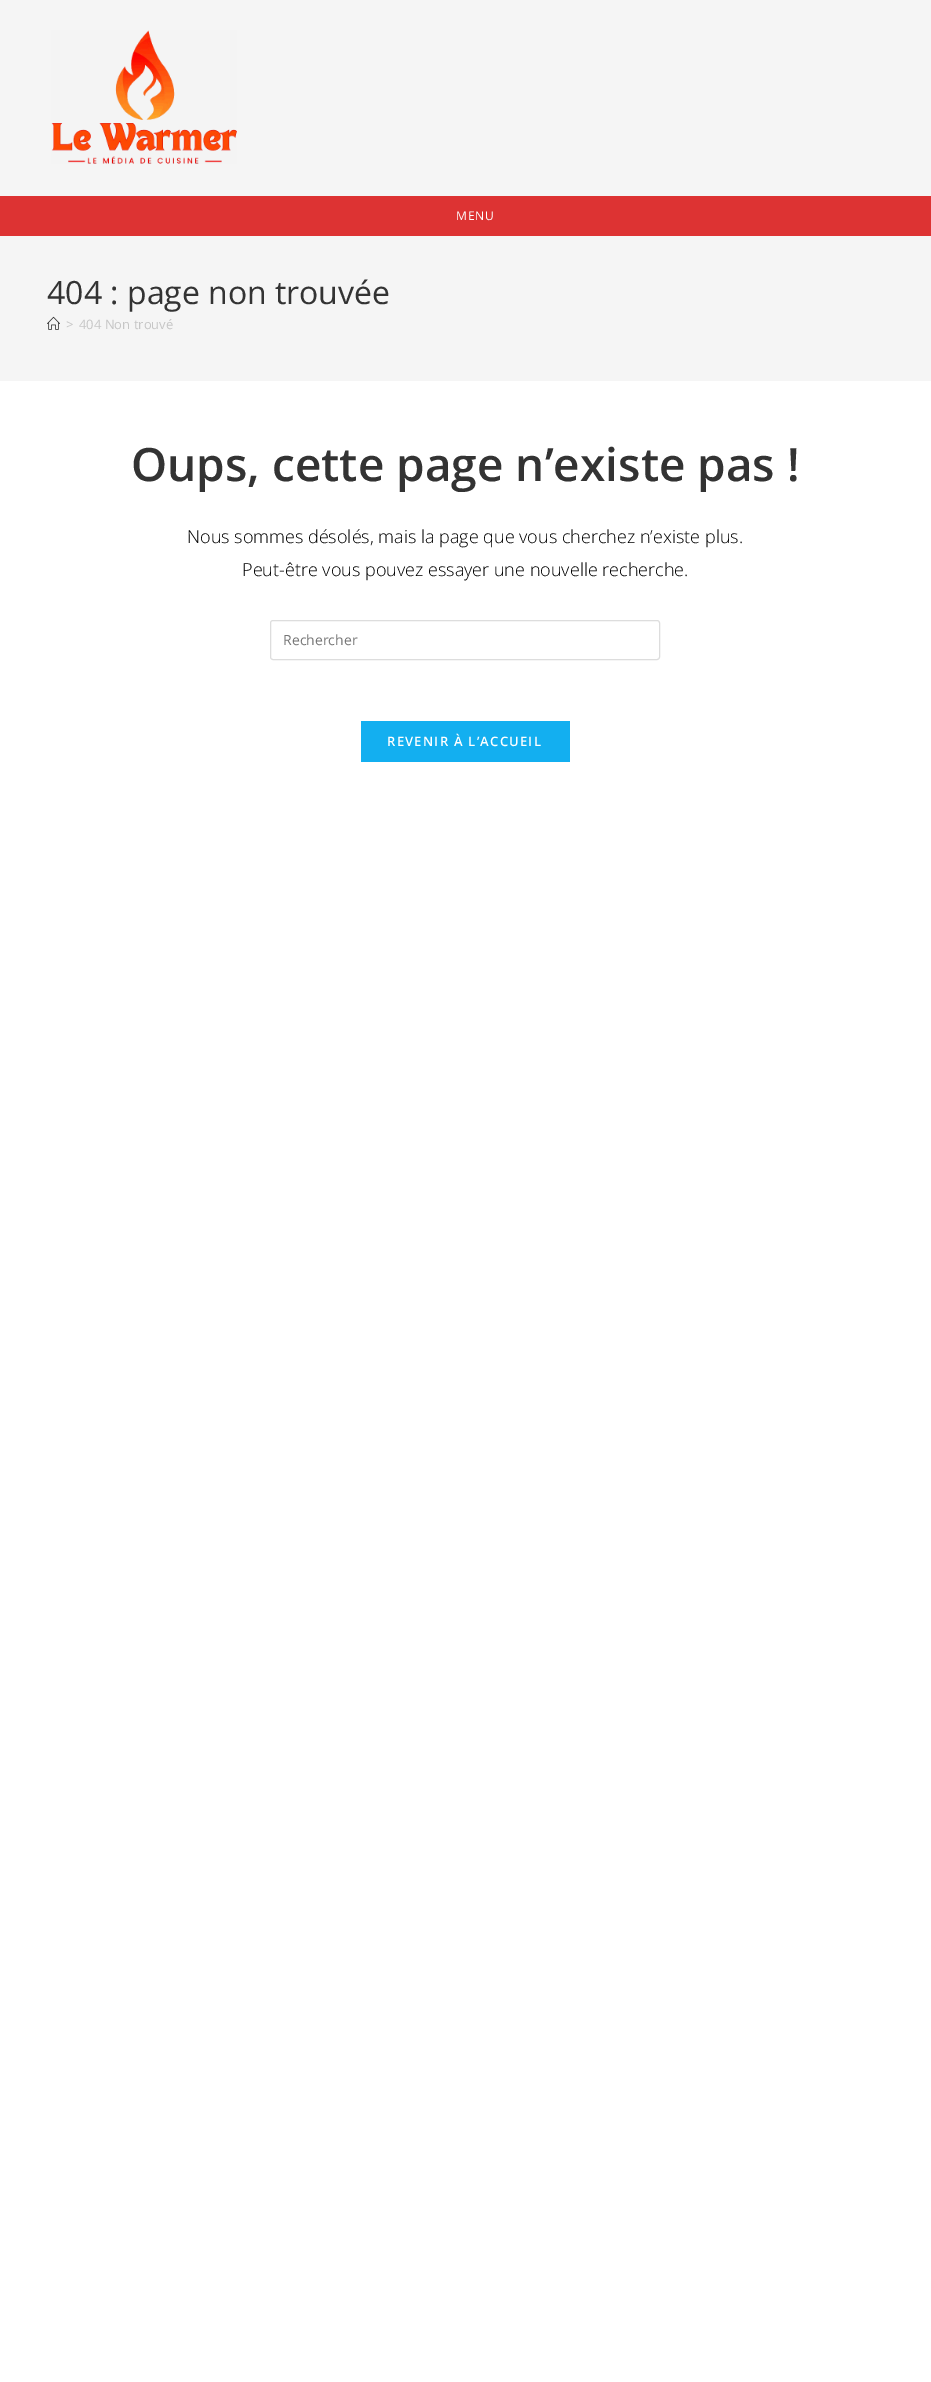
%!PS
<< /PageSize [931 2382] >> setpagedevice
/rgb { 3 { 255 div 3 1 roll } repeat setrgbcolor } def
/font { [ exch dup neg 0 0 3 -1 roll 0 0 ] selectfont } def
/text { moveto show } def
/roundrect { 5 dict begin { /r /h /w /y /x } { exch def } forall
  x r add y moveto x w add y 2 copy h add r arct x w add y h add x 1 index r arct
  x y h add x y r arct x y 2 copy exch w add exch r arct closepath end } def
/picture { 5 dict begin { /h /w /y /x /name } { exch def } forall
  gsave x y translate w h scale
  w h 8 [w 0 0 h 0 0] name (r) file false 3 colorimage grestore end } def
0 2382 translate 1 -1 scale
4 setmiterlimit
255 255 255 rgb
0 0 931 2382 rectfill
245 245 245 rgb
0 0 931 196 rectfill
(img_01.rgb) 51 30 186 134 picture
221 51 51 rgb
0 196 931 40 rectfill
245 245 245 rgb
0 236 931 145 rectfill
(img_02.rgb) 47 316 13 14 picture
221 221 221 rgb
270.5 620.5 389 39 2.5 roundrect stroke
19 175 240 rgb
361 721 209 41 rectfill
/OpenSans-Regular 12 font
255 255 255 rgb
456 220 moveto 1 0 (MENU) ashow
/OpenSans-Regular 32 font
51 51 51 rgb
(404 : page non trouvée) 47 304 text
/OpenSans-Regular 13 font
198 198 198 rgb
(>) 66 329 text
(404 Non trouvé) 79 329 text
/OpenSans-SemiBold 46 font
51 51 51 rgb
(Oups, cette page n’existe pas !) 131 481 text
/OpenSans-Light 18 font
0 0 0 rgb
(Nous sommes désolés, mais la page que vous cherchez n’existe plus.) 187 543 text
(Peut-être vous pouvez essayer une nouvelle recherche.) 242 576 text
/OpenSans-Regular 14 font
117 117 117 rgb
(Rechercher) 283 645 text
/OpenSans-SemiBold 13 font
255 255 255 rgb
387 746 moveto 1.25 0 (REVENIR À L’ACCUEIL) ashow
showpage
